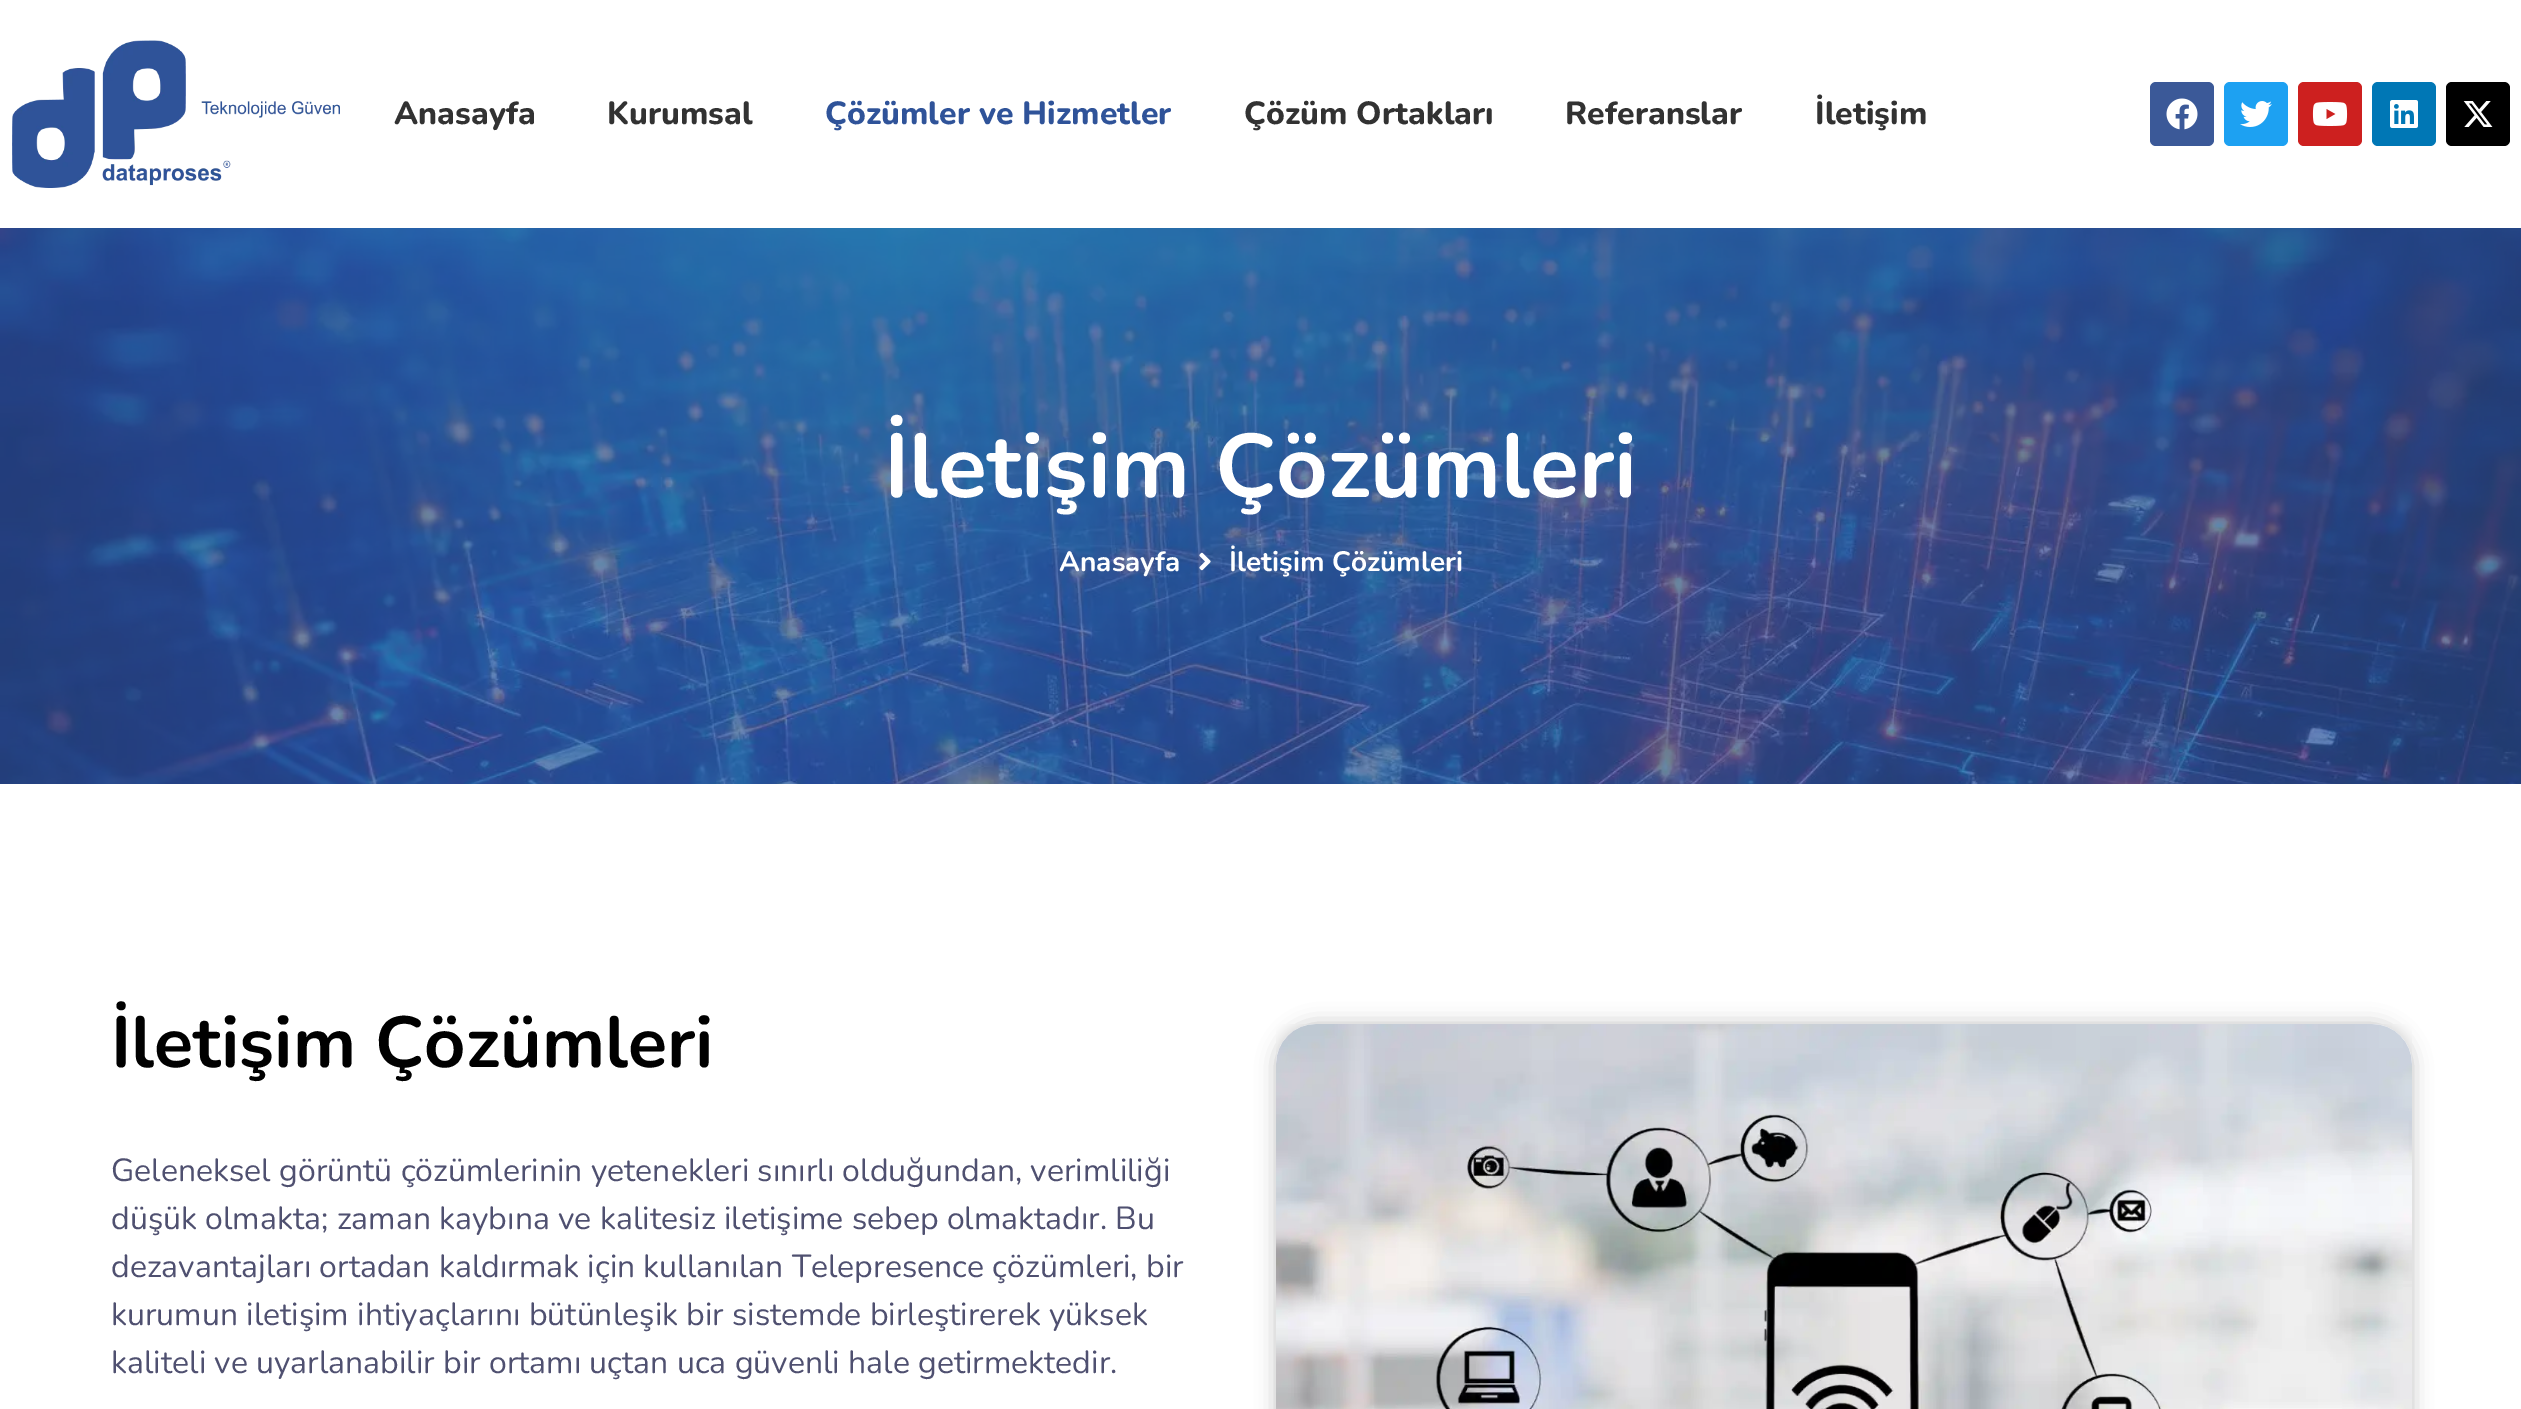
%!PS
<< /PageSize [2521 1409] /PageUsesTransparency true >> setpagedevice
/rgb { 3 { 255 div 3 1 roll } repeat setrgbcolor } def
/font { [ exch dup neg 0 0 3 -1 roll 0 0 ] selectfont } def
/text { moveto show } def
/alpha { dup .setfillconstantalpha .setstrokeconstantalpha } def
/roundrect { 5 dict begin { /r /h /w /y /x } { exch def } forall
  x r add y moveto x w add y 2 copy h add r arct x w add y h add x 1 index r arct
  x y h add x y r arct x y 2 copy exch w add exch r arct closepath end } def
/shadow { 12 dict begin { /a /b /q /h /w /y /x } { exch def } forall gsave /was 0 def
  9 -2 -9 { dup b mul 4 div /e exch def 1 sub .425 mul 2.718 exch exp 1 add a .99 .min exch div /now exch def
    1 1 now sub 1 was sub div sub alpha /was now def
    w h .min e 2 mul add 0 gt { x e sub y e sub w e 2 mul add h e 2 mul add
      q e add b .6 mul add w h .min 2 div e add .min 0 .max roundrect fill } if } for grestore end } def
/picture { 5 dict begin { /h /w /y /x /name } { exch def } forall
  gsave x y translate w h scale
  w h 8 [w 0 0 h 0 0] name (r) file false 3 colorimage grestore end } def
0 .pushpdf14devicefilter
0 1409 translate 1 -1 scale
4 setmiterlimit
255 255 255 rgb
0 0 2521 1409 rectfill
(img_01.rgb) 12 40 328 148 picture
59 89 152 rgb
2150 82 64 64 6 roundrect fill
(img_02.rgb) 2166 98 32 32 picture
29 161 242 rgb
2224 82 64 64 6 roundrect fill
(img_03.rgb) 2240 101 32 26 picture
205 32 31 rgb
2298 82 64 64 6 roundrect fill
(img_04.rgb) 2312 102 36 24 picture
0 119 181 rgb
2372 82 64 64 6 roundrect fill
(img_05.rgb) 2390 100 28 28 picture
0 0 0 rgb
2446 82 64 64 6 roundrect fill
(img_06.rgb) 2463 101 30 26 picture
(img_07.rgb) 0 228 2521 556 picture
(img_08.rgb) 1199 552 12 19 picture
131 131 131 rgb
1276 1024 1136 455 40 10 0.5 shadow
(img_09.rgb) 1276 1024 1136 385 picture
/Nunito-ExtraBold 32 font
50 50 50 rgb
(Anasayfa) 394 124 text
(Kurumsal) 607 124 text
47 83 153 rgb
(Çözümler ve Hizmetler) 825 124 text
50 50 50 rgb
(Çözüm Ortakları) 1244 124 text
(Referanslar) 1565 124 text
(İletişim) 1815 124 text
/Nunito-Bold 90 font
255 255 255 rgb
(İletişim Çözümleri) 884 497 text
/Nunito-Bold 28 font
(Anasayfa) 1059 571 text
(İletişim Çözümleri) 1229 571 text
/Nunito-Bold 72 font
0 0 0 rgb
(İletişim Çözümleri) 111 1067 text
/Nunito-Regular 32 font
79 80 112 rgb
(Geleneksel görüntü çözümlerinin yetenekleri sınırlı olduğundan, verimliliği) 111 1181 text
(düşük olmakta; zaman kaybına ve kalitesiz iletişime sebep olmaktadır. Bu) 111 1229 text
(dezavantajları ortadan kaldırmak için kullanılan Telepresence çözümleri, bir) 111 1277 text
(kurumun iletişim ihtiyaçlarını bütünleşik bir sistemde birleştirerek yüksek) 111 1325 text
(kaliteli ve uyarlanabilir bir ortamı uçtan uca güvenli hale getirmektedir.) 111 1373 text
.poppdf14devicefilter showpage
